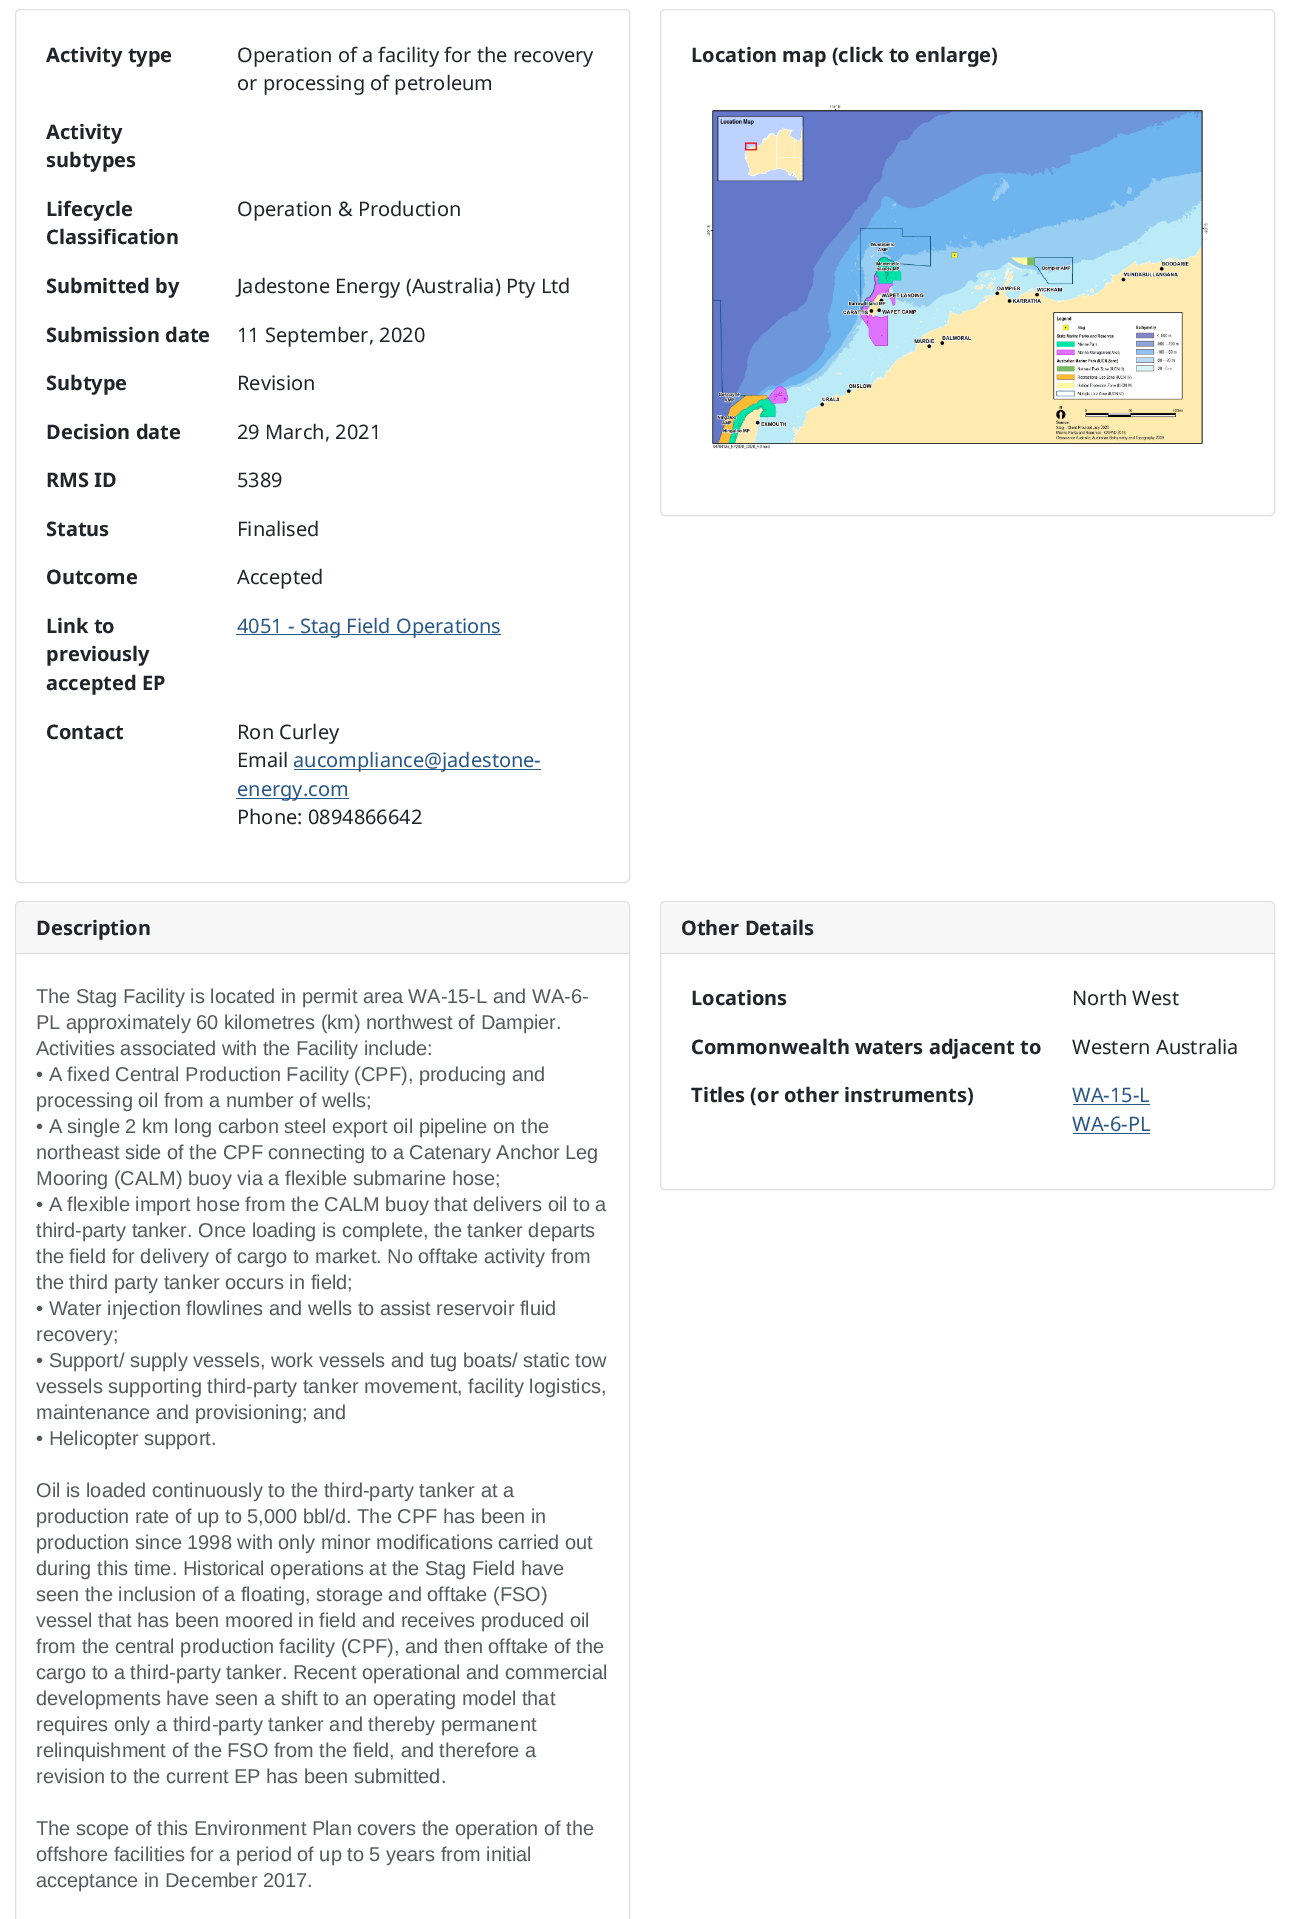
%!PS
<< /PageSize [1289 1919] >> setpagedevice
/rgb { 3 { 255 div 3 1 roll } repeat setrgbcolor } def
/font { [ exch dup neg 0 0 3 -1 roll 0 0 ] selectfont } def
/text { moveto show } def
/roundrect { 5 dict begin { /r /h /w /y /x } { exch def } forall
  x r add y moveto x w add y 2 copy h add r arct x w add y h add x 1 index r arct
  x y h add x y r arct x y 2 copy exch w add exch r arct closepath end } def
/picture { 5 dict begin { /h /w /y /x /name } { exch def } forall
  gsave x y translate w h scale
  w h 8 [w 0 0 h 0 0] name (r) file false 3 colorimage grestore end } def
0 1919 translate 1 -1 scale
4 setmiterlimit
255 255 255 rgb
0 0 1289 1919 rectfill
223 223 223 rgb
15.5 9.5 614 873 4.5 roundrect stroke
40 88 134 rgb
236 634 265 1 rectfill
294 769 247 1 rectfill
236 798 113 1 rectfill
223 223 223 rgb
660.5 9.5 614 506 4.5 roundrect stroke
(img_01.rgb) 706 105 502 344 picture
15.5 901.5 614 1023 4.5 roundrect stroke
247 247 247 rgb
20 903 moveto 605 0 rlineto 2 0 4 2 4 4 rcurveto 0 47 rlineto -613 0 rlineto 0 -47 rlineto 0 -2 2 -4 4 -4 rcurveto closepath fill
216 216 216 rgb
16 953 613 1 rectfill
223 223 223 rgb
660.5 901.5 614 288 4.5 roundrect stroke
247 247 247 rgb
665 903 moveto 605 0 rlineto 2 0 4 2 4 4 rcurveto 0 47 rlineto -613 0 rlineto 0 -47 rlineto 0 -2 2 -4 4 -4 rcurveto closepath fill
216 216 216 rgb
661 953 613 1 rectfill
40 88 134 rgb
1073 1104 77 1 rectfill
1073 1133 77 1 rectfill
/NotoSans-Bold 20 font
33 37 41 rgb
(Activity type) 46 62 text
/NotoSans-Regular 20 font
(Operation of a facility for the recovery) 237 62 text
(or processing of petroleum) 237 90 text
/NotoSans-Bold 20 font
(Activity) 46 139 text
(subtypes) 46 167 text
(Lifecycle) 46 216 text
(Classification) 46 244 text
/NotoSans-Regular 20 font
(Operation & Production) 237 216 text
/NotoSans-Bold 20 font
(Submitted by) 46 293 text
/NotoSans-Regular 20 font
(Jadestone Energy \(Australia\) Pty Ltd) 237 293 text
/NotoSans-Bold 20 font
(Submission date) 46 342 text
/NotoSans-Regular 20 font
(11 September, 2020) 237 342 text
/NotoSans-Bold 20 font
(Subtype) 46 390 text
/NotoSans-Regular 20 font
(Revision) 237 390 text
/NotoSans-Bold 20 font
(Decision date) 46 439 text
/NotoSans-Regular 20 font
(29 March, 2021) 237 439 text
/NotoSans-Bold 20 font
(RMS ID) 46 487 text
/NotoSans-Regular 20 font
(5389) 237 487 text
/NotoSans-Bold 20 font
(Status) 46 536 text
/NotoSans-Regular 20 font
(Finalised) 237 536 text
/NotoSans-Bold 20 font
(Outcome) 46 584 text
/NotoSans-Regular 20 font
(Accepted) 237 584 text
/NotoSans-Bold 20 font
(Link to) 46 633 text
(previously) 46 661 text
(accepted EP) 46 690 text
/NotoSans-Regular 20 font
40 88 134 rgb
(4051 - Stag Field Operations) 237 633 text
/NotoSans-Bold 20 font
33 37 41 rgb
(Contact) 46 739 text
/NotoSans-Regular 20 font
(Ron Curley) 237 739 text
(Email) 237 767 text
40 88 134 rgb
(aucompliance@jadestone-) 293 767 text
(energy.com) 237 796 text
33 37 41 rgb
(Phone: 0894866642) 237 824 text
/NotoSans-Bold 20 font
(Location map \(click to enlarge\)) 691 62 text
(Description) 36 935 text
/LiberationSans-Regular 20 font
86 90 91 rgb
(The Stag Facility is located in permit area WA-15-L and WA-6-) 36 1003 text
(PL approximately 60 kilometres \(km\) northwest of Dampier.) 36 1029 text
(Activities associated with the Facility include:) 36 1055 text
(• A fixed Central Production Facility \(CPF\), producing and) 36 1081 text
(processing oil from a number of wells;) 36 1107 text
(• A single 2 km long carbon steel export oil pipeline on the) 36 1133 text
(northeast side of the CPF connecting to a Catenary Anchor Leg) 36 1159 text
(Mooring \(CALM\) buoy via a flexible submarine hose;) 36 1185 text
(• A flexible import hose from the CALM buoy that delivers oil to a) 36 1211 text
(third-party tanker. Once loading is complete, the tanker departs) 36 1237 text
(the field for delivery of cargo to market. No offtake activity from) 36 1263 text
(the third party tanker occurs in field;) 36 1289 text
(• Water injection flowlines and wells to assist reservoir fluid) 36 1315 text
(recovery;) 36 1341 text
(• Support/ supply vessels, work vessels and tug boats/ static tow) 36 1367 text
(vessels supporting third-party tanker movement, facility logistics,) 36 1393 text
(maintenance and provisioning; and) 36 1419 text
(• Helicopter support.) 36 1445 text
(Oil is loaded continuously to the third-party tanker at a) 36 1497 text
(production rate of up to 5,000 bbl/d. The CPF has been in) 36 1523 text
(production since 1998 with only minor modifications carried out) 36 1549 text
(during this time. Historical operations at the Stag Field have) 36 1575 text
(seen the inclusion of a floating, storage and offtake \(FSO\)) 36 1601 text
(vessel that has been moored in field and receives produced oil) 36 1627 text
(from the central production facility \(CPF\), and then offtake of the) 36 1653 text
(cargo to a third-party tanker. Recent operational and commercial) 36 1679 text
(developments have seen a shift to an operating model that) 36 1705 text
(requires only a third-party tanker and thereby permanent) 36 1731 text
(relinquishment of the FSO from the field, and therefore a) 36 1757 text
(revision to the current EP has been submitted.) 36 1783 text
(The scope of this Environment Plan covers the operation of the) 36 1835 text
(offshore facilities for a period of up to 5 years from initial) 36 1861 text
(acceptance in December 2017.) 36 1887 text
/NotoSans-Bold 20 font
33 37 41 rgb
(Other Details) 681 935 text
(Locations) 691 1005 text
/NotoSans-Regular 20 font
(North West) 1072 1005 text
/NotoSans-Bold 20 font
(Commonwealth waters adjacent to) 691 1054 text
/NotoSans-Regular 20 font
(Western Australia) 1072 1054 text
/NotoSans-Bold 20 font
(Titles \(or other instruments\)) 691 1102 text
/NotoSans-Regular 20 font
40 88 134 rgb
(WA-15-L) 1072 1102 text
(WA-6-PL) 1072 1131 text
showpage
